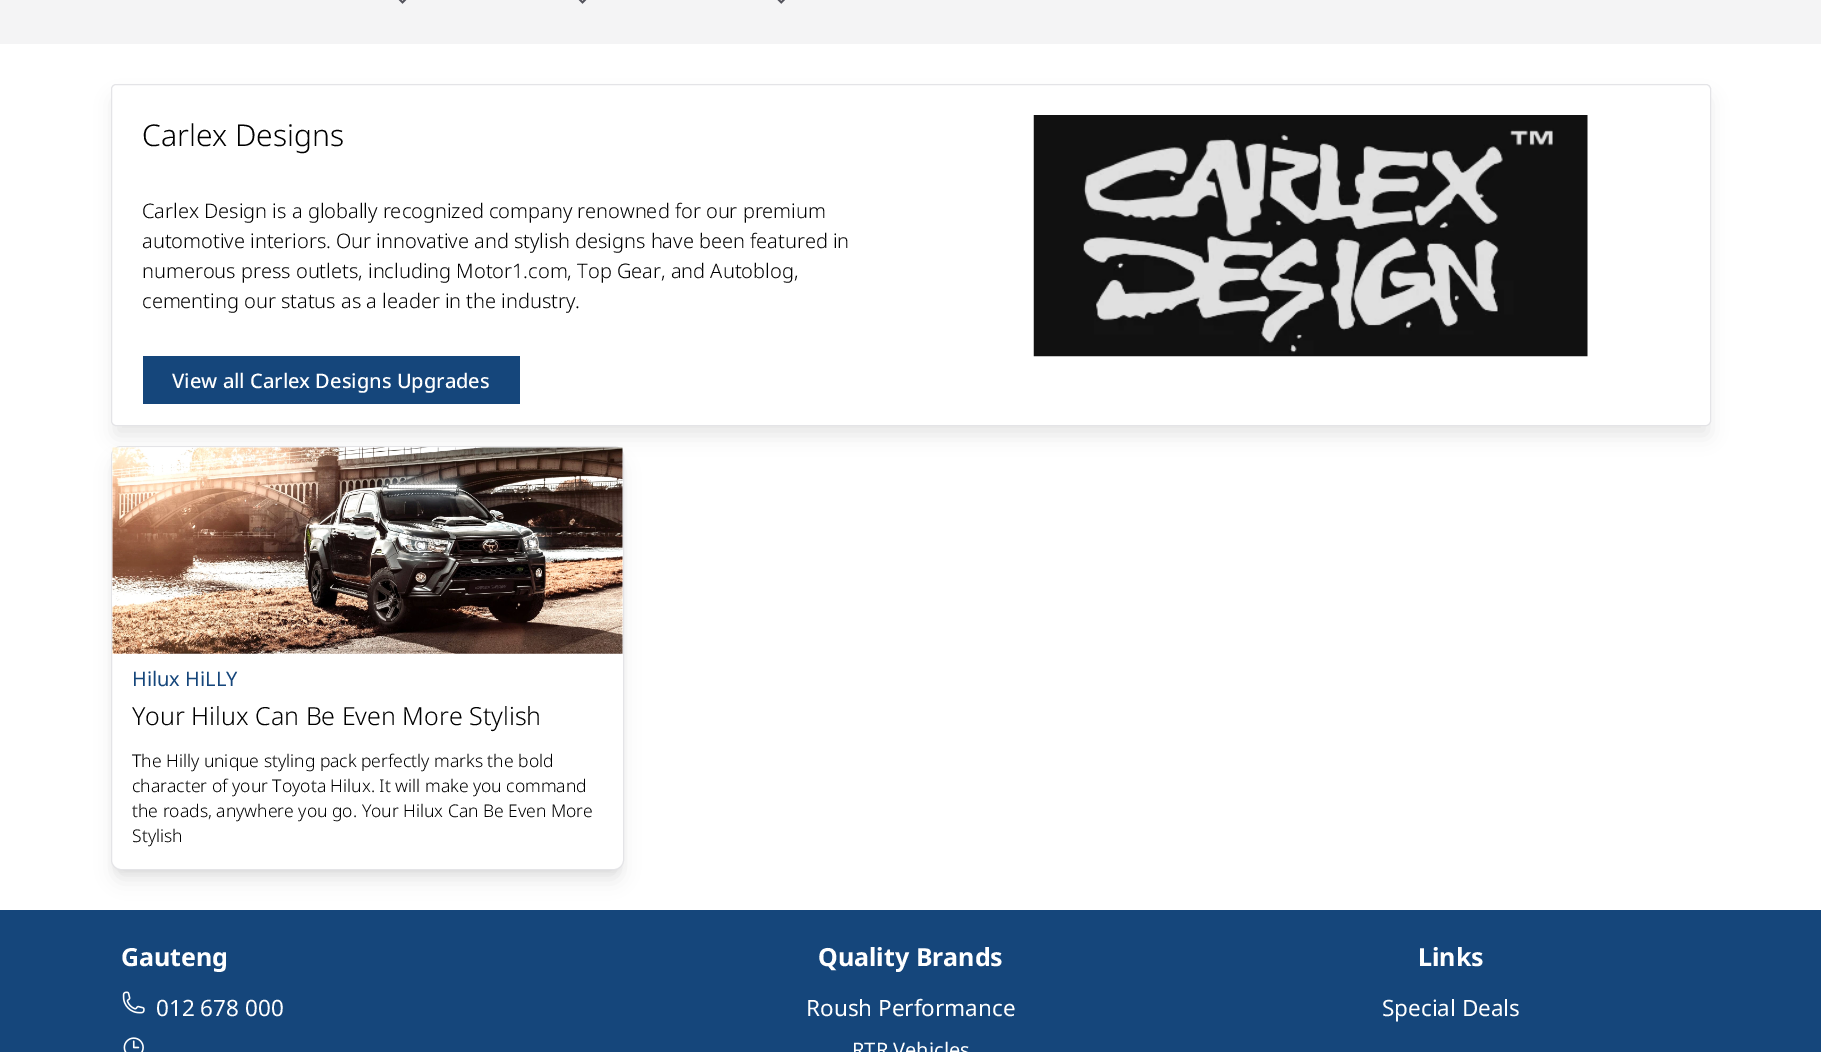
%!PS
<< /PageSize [1821 1052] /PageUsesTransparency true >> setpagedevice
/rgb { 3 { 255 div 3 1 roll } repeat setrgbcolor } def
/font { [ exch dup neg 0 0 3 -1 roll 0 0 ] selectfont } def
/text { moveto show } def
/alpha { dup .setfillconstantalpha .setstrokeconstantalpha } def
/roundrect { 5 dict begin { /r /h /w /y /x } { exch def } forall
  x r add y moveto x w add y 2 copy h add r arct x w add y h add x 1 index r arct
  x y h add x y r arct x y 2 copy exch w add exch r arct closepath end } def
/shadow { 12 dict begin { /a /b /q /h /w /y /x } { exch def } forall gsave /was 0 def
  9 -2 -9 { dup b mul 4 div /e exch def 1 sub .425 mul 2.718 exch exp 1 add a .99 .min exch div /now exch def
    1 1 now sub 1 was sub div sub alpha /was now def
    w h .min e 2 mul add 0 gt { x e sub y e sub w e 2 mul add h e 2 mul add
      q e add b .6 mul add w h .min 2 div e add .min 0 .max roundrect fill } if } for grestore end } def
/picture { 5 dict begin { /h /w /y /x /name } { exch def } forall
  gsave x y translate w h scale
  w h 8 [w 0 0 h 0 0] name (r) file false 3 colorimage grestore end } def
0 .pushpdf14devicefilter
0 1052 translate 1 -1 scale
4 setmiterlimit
255 255 255 rgb
0 0 1821 1052 rectfill
244 244 245 rgb
0 0 1821 44 rectfill
(img_01.rgb) 398 0 9 4 picture
(img_01.rgb) 578 0 9 4 picture
(img_02.rgb) 777 0 8 4 picture
gsave
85 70 moveto 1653 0 rlineto 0 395 rlineto -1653 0 rlineto closepath 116 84 moveto 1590 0 rlineto 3 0 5 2 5 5 rcurveto 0 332 rlineto 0 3 -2 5 -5 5 rcurveto -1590 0 rlineto -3 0 -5 -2 -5 -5 rcurveto 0 -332 rlineto 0 -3 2 -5 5 -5 rcurveto closepath eoclip newpath
0 0 0 rgb
115 100 1593 335 1 9.5 0.1 shadow
grestore
228 228 231 rgb
111.5 84.5 1599 341 4.5 roundrect stroke
21 70 123 rgb
143 356 377 48 rectfill
(img_03.rgb) 1033 115 555 242 picture
gsave
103 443 moveto 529 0 rlineto 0 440 rlineto -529 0 rlineto closepath 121 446 moveto 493 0 rlineto 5.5 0 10 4.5 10 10 rcurveto 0 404 rlineto 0 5.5 -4.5 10 -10 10 rcurveto -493 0 rlineto -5.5 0 -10 -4.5 -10 -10 rcurveto 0 -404 rlineto 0 -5.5 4.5 -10 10 -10 rcurveto closepath eoclip newpath
0 0 0 rgb
116 456 503 414 5 4 0.1 shadow
grestore
gsave
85 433 moveto 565 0 rlineto 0 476 rlineto -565 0 rlineto closepath 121 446 moveto 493 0 rlineto 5.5 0 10 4.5 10 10 rcurveto 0 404 rlineto 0 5.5 -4.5 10 -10 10 rcurveto -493 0 rlineto -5.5 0 -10 -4.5 -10 -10 rcurveto 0 -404 rlineto 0 -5.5 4.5 -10 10 -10 rcurveto closepath eoclip newpath
0 0 0 rgb
115 463 505 416 6 9.5 0.1 shadow
grestore
228 228 231 rgb
111.5 446.5 512 423 9.5 roundrect stroke
(img_04.rgb) 112 447 511 207 picture
21 70 123 rgb
0 910 1821 142 rectfill
(img_05.rgb) 122 991 23 23 picture
(img_06.rgb) 123 1037 21 15 picture
/NotoSans-Light 30 font
0 0 0 rgb
(Carlex Designs) 142 146 text
/NotoSans-Light 20 font
(Carlex Design is a globally recognized company renowned for our premium) 142 218 text
(automotive interiors. Our innovative and stylish designs have been featured in) 142 248 text
(numerous press outlets, including Motor1.com, Top Gear, and Autoblog,) 142 278 text
(cementing our status as a leader in the industry.) 142 308 text
/NotoSans-Medium 20 font
255 255 255 rgb
(View all Carlex Designs Upgrades) 172 388 text
/NotoSans-Regular 20 font
21 70 123 rgb
(Hilux HiLLY) 132 686 text
/NotoSans-Light 25 font
0 0 0 rgb
(Your Hilux Can Be Even More Stylish) 132 725 text
/NotoSans-Light 17.5 font
(The Hilly unique styling pack perfectly marks the bold) 132 767 text
(character of your Toyota Hilux. It will make you command) 132 792 text
(the roads, anywhere you go. Your Hilux Can Be Even More) 132 817 text
(Stylish) 132 842 text
/NotoSans-Bold 25 font
255 255 255 rgb
(Gauteng) 121 966 text
/NotoSans-Regular 22.5 font
(012 678 000) 156 1016 text
/NotoSans-Bold 25 font
(Quality Brands) 818 966 text
/NotoSans-Regular 22.5 font
(Roush Performance) 806 1016 text
/NotoSans-Regular 20 font
(RTR Vehicles) 852 1057 text
/NotoSans-Bold 25 font
(Links) 1418 966 text
/NotoSans-Regular 22.5 font
(Special Deals) 1382 1016 text
.poppdf14devicefilter showpage
